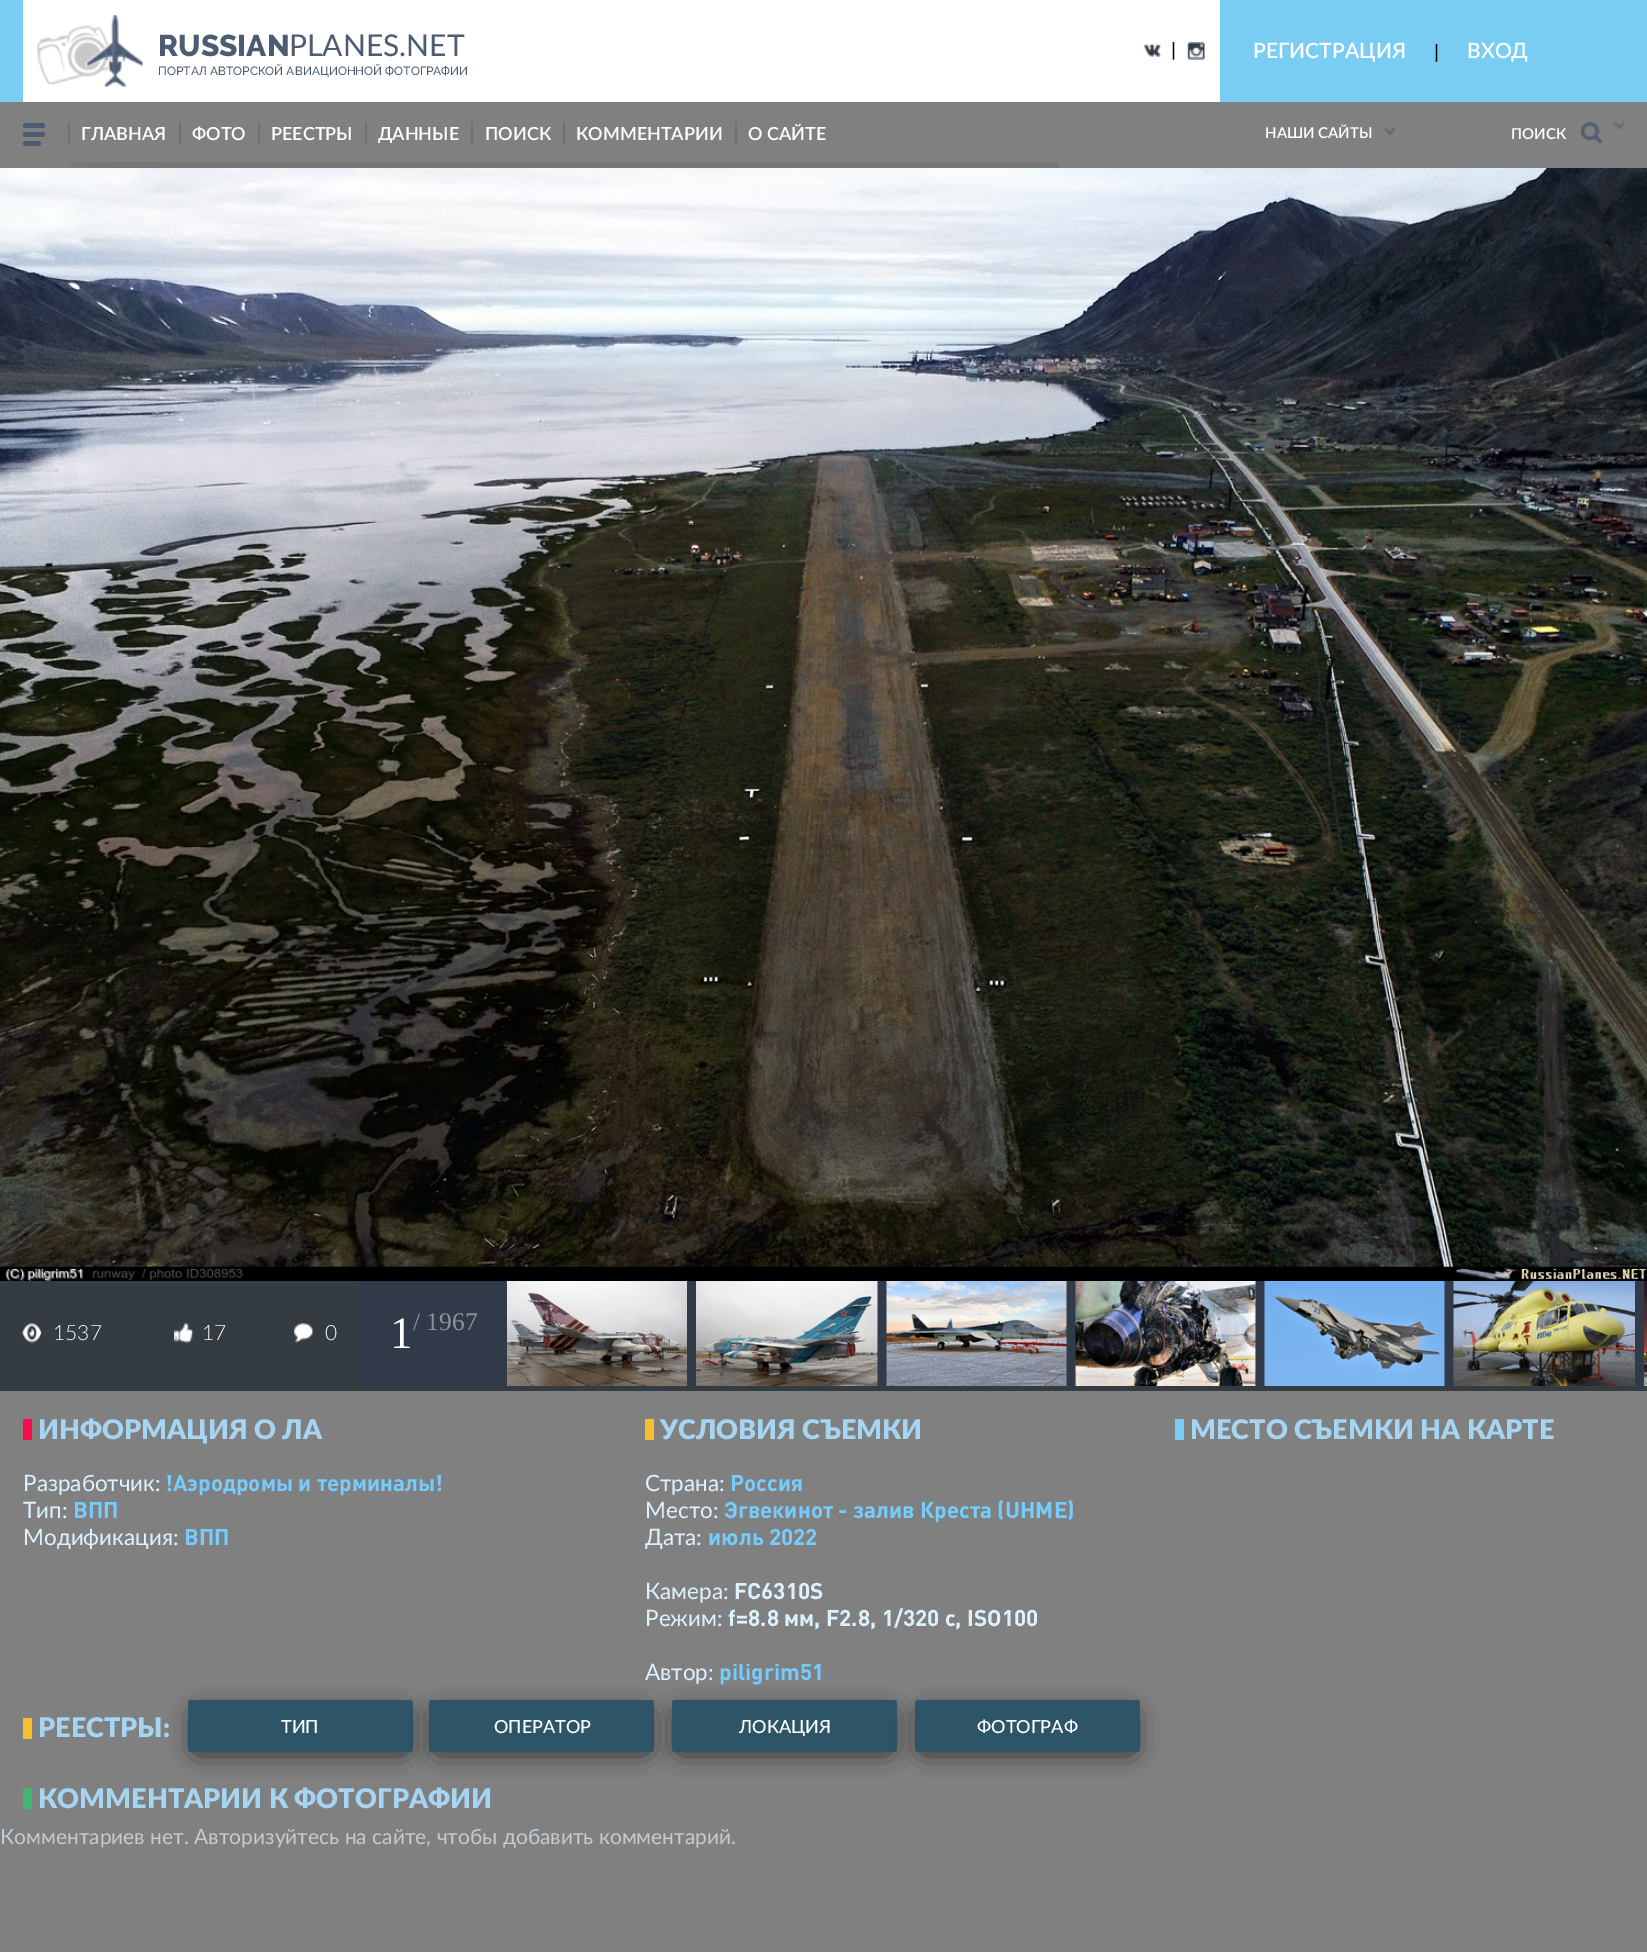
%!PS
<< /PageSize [1647 1952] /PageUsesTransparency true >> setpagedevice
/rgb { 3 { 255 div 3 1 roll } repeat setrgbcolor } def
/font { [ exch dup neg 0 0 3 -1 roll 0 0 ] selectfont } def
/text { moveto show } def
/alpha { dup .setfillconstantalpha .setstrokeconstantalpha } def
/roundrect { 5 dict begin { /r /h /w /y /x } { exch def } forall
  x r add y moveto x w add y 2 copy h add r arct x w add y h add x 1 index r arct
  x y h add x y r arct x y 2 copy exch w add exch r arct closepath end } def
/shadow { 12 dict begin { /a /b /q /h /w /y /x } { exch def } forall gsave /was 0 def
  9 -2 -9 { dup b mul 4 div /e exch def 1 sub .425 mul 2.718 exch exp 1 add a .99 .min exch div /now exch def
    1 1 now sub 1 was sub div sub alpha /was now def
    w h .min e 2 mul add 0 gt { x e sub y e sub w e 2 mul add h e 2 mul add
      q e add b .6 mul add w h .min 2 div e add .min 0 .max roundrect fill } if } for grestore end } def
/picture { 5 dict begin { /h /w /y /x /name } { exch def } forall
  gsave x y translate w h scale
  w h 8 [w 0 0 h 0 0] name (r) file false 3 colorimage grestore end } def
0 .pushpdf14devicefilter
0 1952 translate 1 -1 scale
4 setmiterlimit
128 128 128 rgb
0 0 1647 1952 rectfill
121 204 242 rgb
0 0 1647 102 rectfill
255 255 255 rgb
23 0 1197 102 rectfill
(img_01.rgb) 37 15 106 72 picture
(img_02.rgb) 1144 43 17 14 picture
(img_03.rgb) 1186 42 19 18 picture
76 91 114 rgb
23 123 22 5 2.5 roundrect fill
23 132 22 5 2.5 roundrect fill
23 141 18 5 2.5 roundrect fill
107 113 122 rgb
68 122 2 22 rectfill
179 122 2 22 rectfill
258 122 2 22 rectfill
365 122 2 22 rectfill
471 122 2 22 rectfill
563 122 2 22 rectfill
735 122 2 22 rectfill
(img_04.rgb) 70 162 989 6 picture
(img_05.rgb) 1384 127 11 8 picture
(img_06.rgb) 1581 121 21 23 picture
(img_07.rgb) 1614 121 11 8 picture
(img_08.rgb) 0 168 1647 1113 picture
49 58 73 rgb
360 1281 1284 105 rectfill
52 59 65 rgb
0 1281 360 105 rectfill
(img_09.rgb) 22 1323 20 20 picture
(img_10.rgb) 174 1323 20 20 picture
(img_11.rgb) 294 1323 20 20 picture
(img_12.rgb) 507 1281 180 105 picture
(img_13.rgb) 696 1281 182 105 picture
(img_14.rgb) 886 1281 181 105 picture
(img_15.rgb) 1075 1281 181 105 picture
(img_16.rgb) 1264 1281 181 105 picture
(img_17.rgb) 1453 1281 182 105 picture
(img_18.rgb) 1644 1281 3 105 picture
0 1386 1647 5 rectfill
245 12 77 rgb
23 1419 9 21 rectfill
246 191 47 rgb
645 1419 9 21 rectfill
23 1718 9 21 rectfill
0 0 0 rgb
197 1715 207 34 0 13 1 shadow
46 85 103 rgb
188 1700 225 52 3 roundrect fill
0 0 0 rgb
438 1715 207 34 0 13 1 shadow
46 85 103 rgb
429 1700 225 52 3 roundrect fill
0 0 0 rgb
681 1715 207 34 0 13 1 shadow
46 85 103 rgb
672 1700 225 52 3 roundrect fill
0 0 0 rgb
924 1715 207 34 0 13 1 shadow
46 85 103 rgb
915 1700 225 52 3 roundrect fill
66 181 116 rgb
23 1788 9 21 rectfill
121 204 242 rgb
1175 1419 9 21 rectfill
/Raleway-ExtraBold 30 font
77 92 115 rgb
(RUSSIAN) 158 56 text
/Lato-Regular 30 font
(PLANES.NET) 289 56 text
/Raleway-Medium 12 font
(ПОРТАЛ АВТОРСКОЙ АВИАЦИОННОЙ ФОТОГРАФИИ) 158 75 text
/Roboto-Regular 21 font
0 0 0 rgb
(|) 1171 57 text
/Lato-SemiBold 21 font
255 255 255 rgb
(РЕГИСТРАЦИЯ) 1253 58 text
/Roboto-Regular 21 font
0 0 0 rgb
(|) 1434 59 text
/Lato-SemiBold 21 font
255 255 255 rgb
(ВХОД) 1467 58 text
/Lato-SemiBold 18 font
(ГЛАВНАЯ) 81 140 text
(ФОТО) 192 140 text
(РЕЕСТРЫ) 271 140 text
(ДАННЫЕ) 378 140 text
(ПОИСК) 485 140 text
(КОММЕНТАРИИ) 576 140 text
(О САЙТЕ) 748 140 text
/Lato-SemiBold 15 font
(НАШИ САЙТЫ) 1265 138 text
(ПОИСК) 1511 139 text
/Lato-Light 21 font
(1537) 53 1340 text
(17) 202 1340 text
(0) 325 1340 text
/LiberationSerif-Regular 45 font
(1) 390 1348 text
/LiberationSerif-Regular 25.5 font
138 148 157 rgb
(/ 1967) 413 1330 text
/Lato-Black 27 font
165 213 243 rgb
(ИНФОРМАЦИЯ О ЛА) 38 1439 text
/Lato-Regular 22.5 font
221 242 255 rgb
(Разработчик:) 23 1491 text
/DIN-Bold 22.5 font
118 204 255 rgb
(!Аэродромы и терминалы!) 165 1491 text
/Lato-Regular 22.5 font
221 242 255 rgb
(Тип:) 23 1518 text
/DIN-Bold 22.5 font
118 204 255 rgb
(ВПП) 73 1518 text
/Lato-Regular 22.5 font
221 242 255 rgb
(Модификация:) 23 1545 text
/DIN-Bold 22.5 font
118 204 255 rgb
(ВПП) 184 1545 text
/Lato-Black 27 font
165 213 243 rgb
(УСЛОВИЯ СЪЕМКИ) 660 1439 text
/Lato-Regular 22.5 font
221 242 255 rgb
(Страна:) 645 1491 text
/DIN-Bold 22.5 font
118 204 255 rgb
(Россия) 730 1491 text
/Lato-Regular 22.5 font
221 242 255 rgb
(Место:) 645 1518 text
/DIN-Bold 22.5 font
118 204 255 rgb
(Эгвекинот - залив Креста \(UHME\)) 724 1518 text
/Lato-Regular 22.5 font
221 242 255 rgb
(Дата:) 645 1545 text
/DIN-Bold 22.5 font
118 204 255 rgb
(июль 2022) 708 1545 text
/Lato-Regular 22.5 font
221 242 255 rgb
(Камера:) 645 1599 text
/DIN-Bold 22.5 font
(FC6310S) 734 1599 text
/Lato-Regular 22.5 font
(Режим:) 645 1626 text
/DIN-Bold 22.5 font
(f=8.8 мм, F2.8, 1/320 с, ISO100) 728 1626 text
/Lato-Regular 22.5 font
(Автор:) 645 1680 text
/DIN-Bold 22.5 font
118 204 255 rgb
(piligrim51) 719 1680 text
/Lato-Black 27 font
165 213 243 rgb
(РЕЕСТРЫ:) 38 1737 text
/Lato-Medium 18 font
255 255 255 rgb
(ТИП) 281 1733 text
(ОПЕРАТОР) 494 1733 text
(ЛОКАЦИЯ) 739 1733 text
(ФОТОГРАФ) 977 1733 text
/Lato-Black 27 font
165 213 243 rgb
(КОММЕНТАРИИ К ФОТОГРАФИИ) 38 1808 text
/Lato-Regular 21 font
194 204 210 rgb
(Комментариев нет. Авторизуйтесь на сайте, чтобы добавить комментарий.) 0 1844 text
/Lato-Black 27 font
165 213 243 rgb
(МЕСТО СЪЕМКИ НА КАРТЕ) 1190 1439 text
.poppdf14devicefilter showpage
